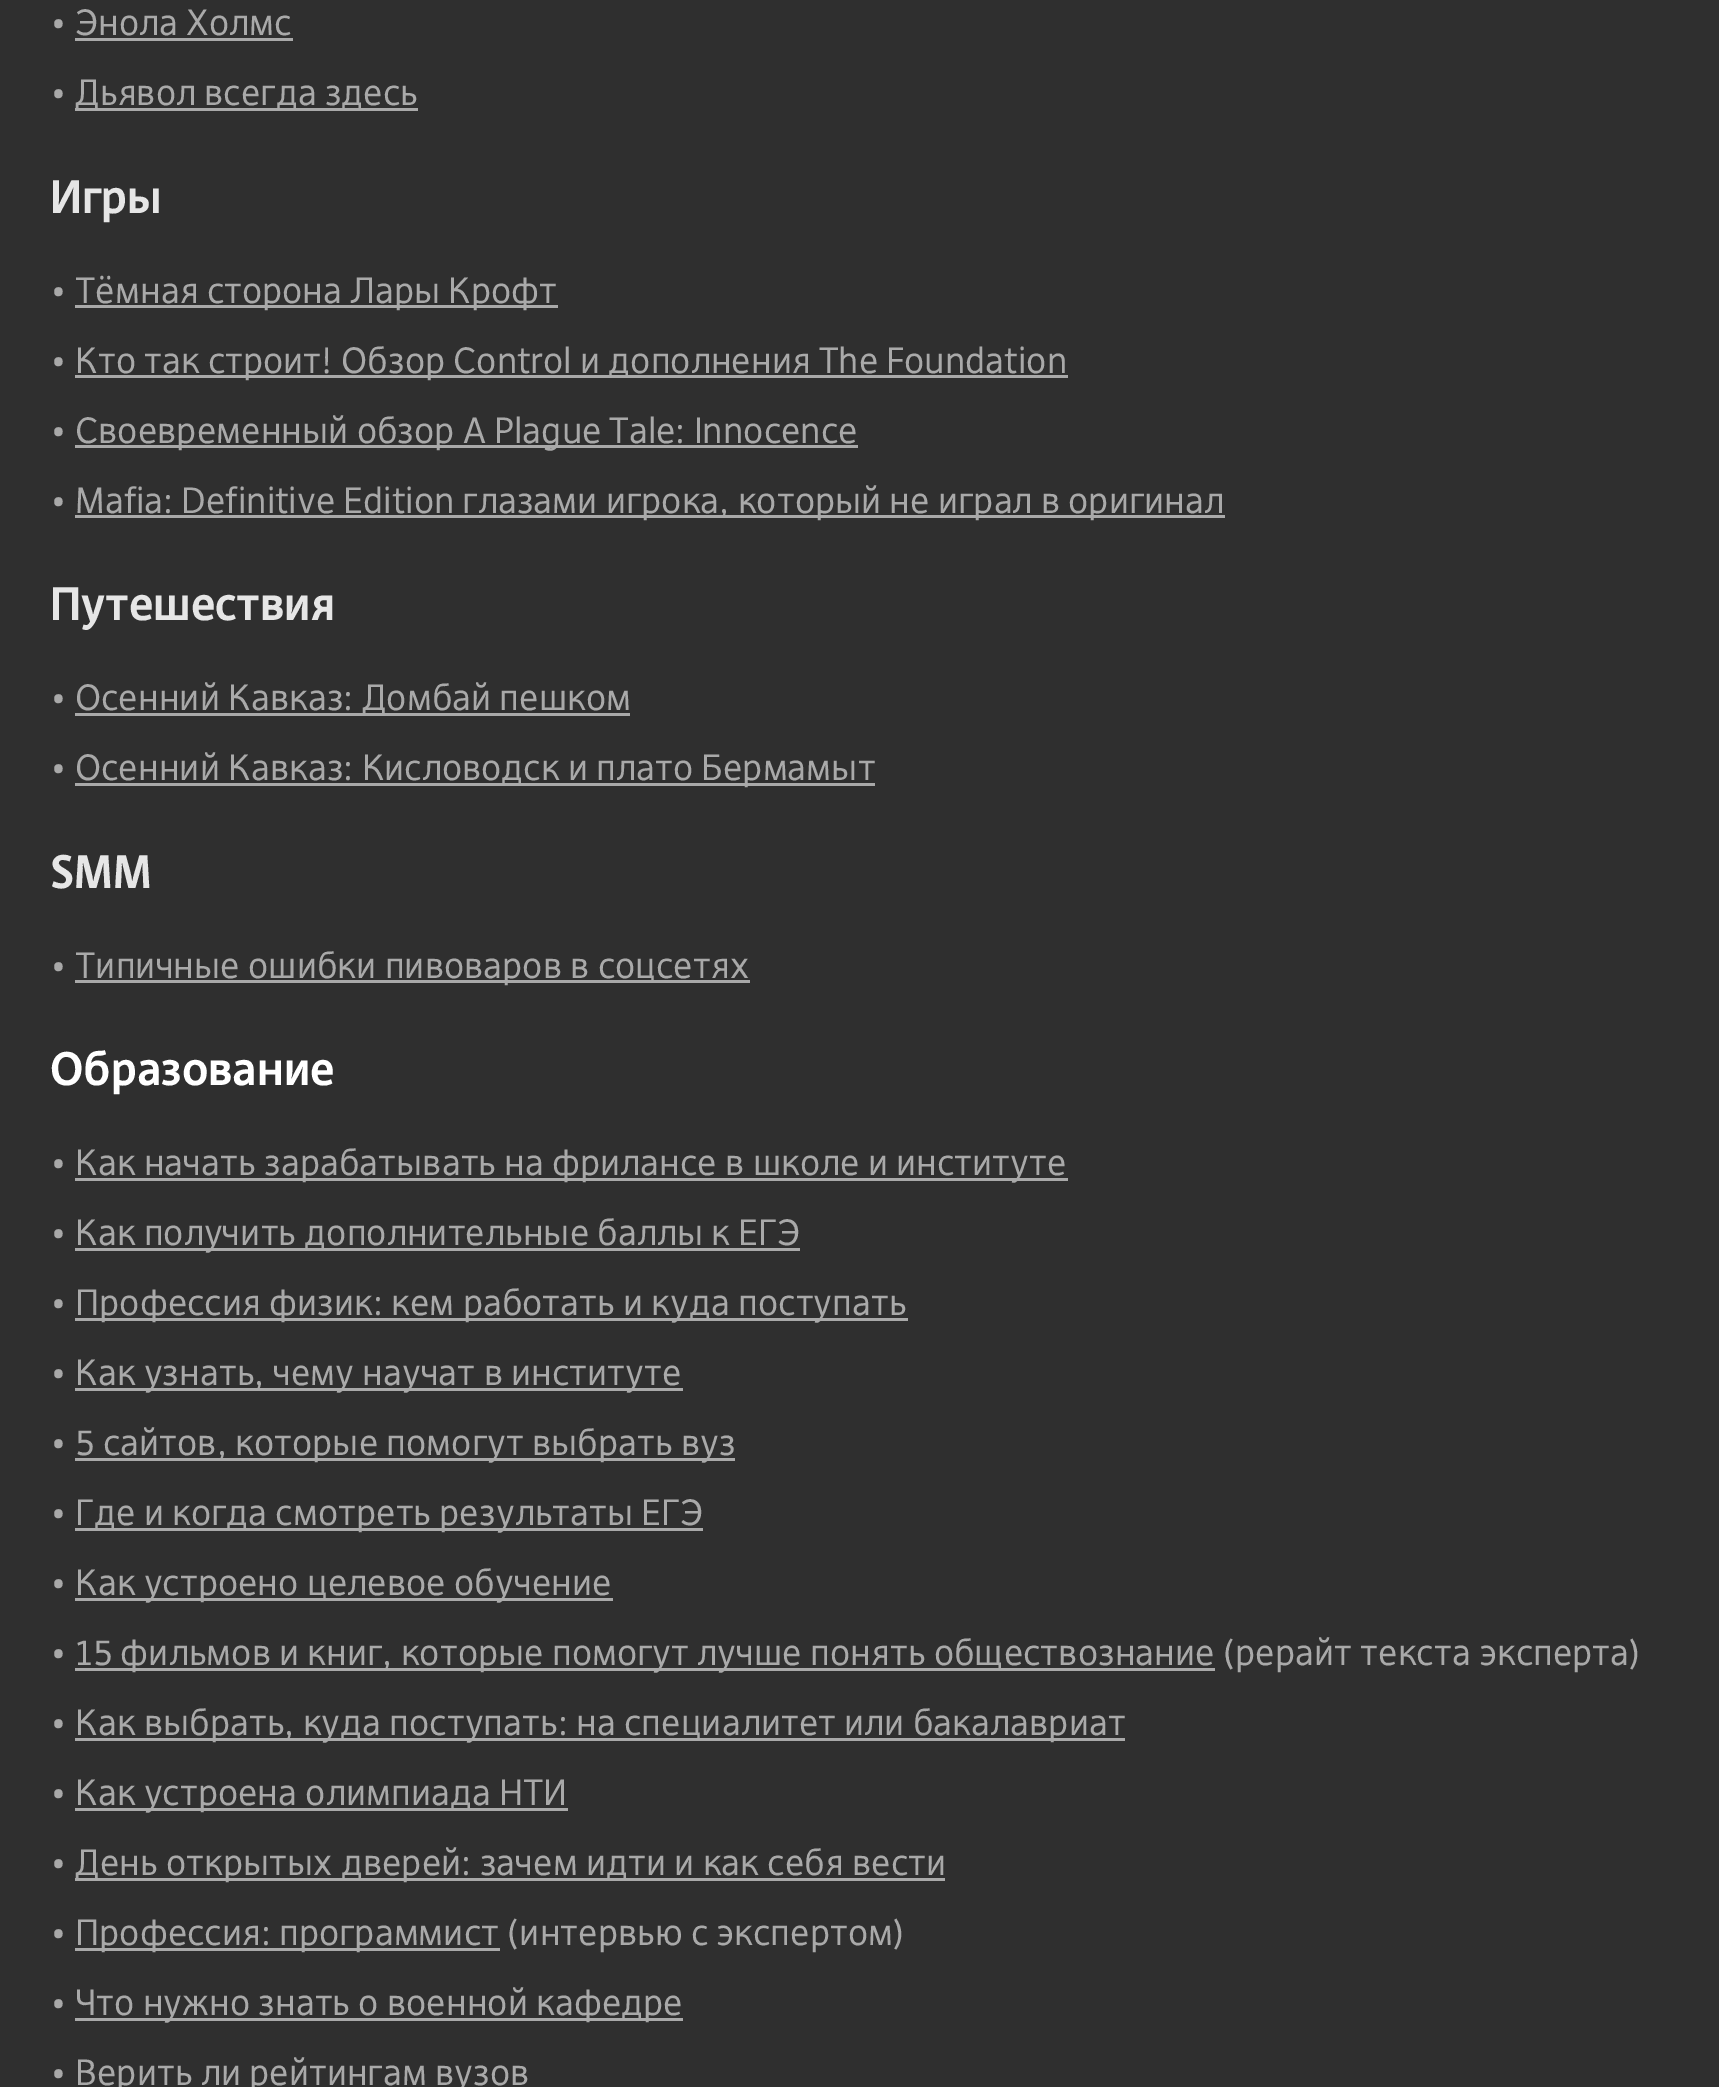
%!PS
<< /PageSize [1719 2087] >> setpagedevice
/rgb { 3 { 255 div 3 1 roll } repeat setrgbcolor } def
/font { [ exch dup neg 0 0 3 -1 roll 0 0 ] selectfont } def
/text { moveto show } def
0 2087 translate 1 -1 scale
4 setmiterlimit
47 47 47 rgb
0 0 1719 2087 rectfill
169 169 169 rgb
75 38 218 3 rectfill
75 108 343 3 rectfill
75 305 483 3 rectfill
75 375 993 3 rectfill
75 445 783 3 rectfill
75 515 1150 3 rectfill
75 713 555 3 rectfill
75 783 800 3 rectfill
75 980 675 3 rectfill
75 1178 993 3 rectfill
75 1248 725 3 rectfill
75 1318 833 3 rectfill
75 1388 608 3 rectfill
75 1458 660 3 rectfill
75 1528 628 3 rectfill
75 1598 538 3 rectfill
75 1668 1140 3 rectfill
75 1738 1050 3 rectfill
75 1808 493 3 rectfill
75 1878 870 3 rectfill
75 1948 425 3 rectfill
75 2018 608 3 rectfill
/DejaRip-Regular 35 font
(• Энола Холмс) 50 35 text
(•) 50 105 text
(Дьявол всегда здесь) 75 105 text
/DejaRip-Bold 45 font
230 230 230 rgb
(Игры) 50 213 text
/DejaRip-Regular 35 font
169 169 169 rgb
(•) 50 303 text
(Тёмная сторона Лары Крофт) 75 303 text
(•) 50 373 text
(Кто так строит! Обзор Control и дополнения The Foundation) 75 373 text
(•) 50 443 text
(Своевременный обзор A Plague Tale: Innocence) 75 443 text
(•) 50 513 text
(Mafia: Definitive Edition глазами игрока, который не играл в оригинал) 75 513 text
/DejaRip-Bold 45 font
230 230 230 rgb
(Путешествия) 50 620 text
/DejaRip-Regular 35 font
169 169 169 rgb
(•) 50 710 text
(Осенний Кавказ: Домбай пешком) 75 710 text
(•) 50 780 text
(Осенний Кавказ: Кисловодск и плато Бермамыт) 75 780 text
/DejaRip-Bold 45 font
230 230 230 rgb
(SMM) 50 888 text
/DejaRip-Regular 35 font
169 169 169 rgb
(•) 50 978 text
(Типичные ошибки пивоваров в соцсетях) 75 978 text
/DejaRip-Bold 45 font
255 255 255 rgb
(Образование) 50 1085 text
/DejaRip-Regular 35 font
169 169 169 rgb
(•) 50 1175 text
(Как начать зарабатывать на фрилансе в школе и институте) 75 1175 text
(•) 50 1245 text
(Как получить дополнительные баллы к ЕГЭ) 75 1245 text
(•) 50 1315 text
(Профессия физик: кем работать и куда поступать) 75 1315 text
(•) 50 1385 text
(Как узнать, чему научат в институте) 75 1385 text
(•) 50 1455 text
(5 сайтов, которые помогут выбрать вуз) 75 1455 text
(•) 50 1525 text
(Где и когда смотреть результаты ЕГЭ) 75 1525 text
(•) 50 1595 text
(Как устроено целевое обучение) 75 1595 text
(•) 50 1665 text
(15 фильмов и книг, которые помогут лучше понять обществознание \(рерайт текста эксперта\)) 75 1665 text
(•) 50 1735 text
(Как выбрать, куда поступать: на специалитет или бакалавриат) 75 1735 text
(•) 50 1805 text
(Как устроена олимпиада НТИ) 75 1805 text
(•) 50 1875 text
(День открытых дверей: зачем идти и как себя вести) 75 1875 text
(•) 50 1945 text
(Профессия: программист \(интервью с экспертом\)) 75 1945 text
(•) 50 2015 text
(Что нужно знать о военной кафедре) 75 2015 text
(• Верить ли рейтингам вузов) 50 2085 text
showpage
